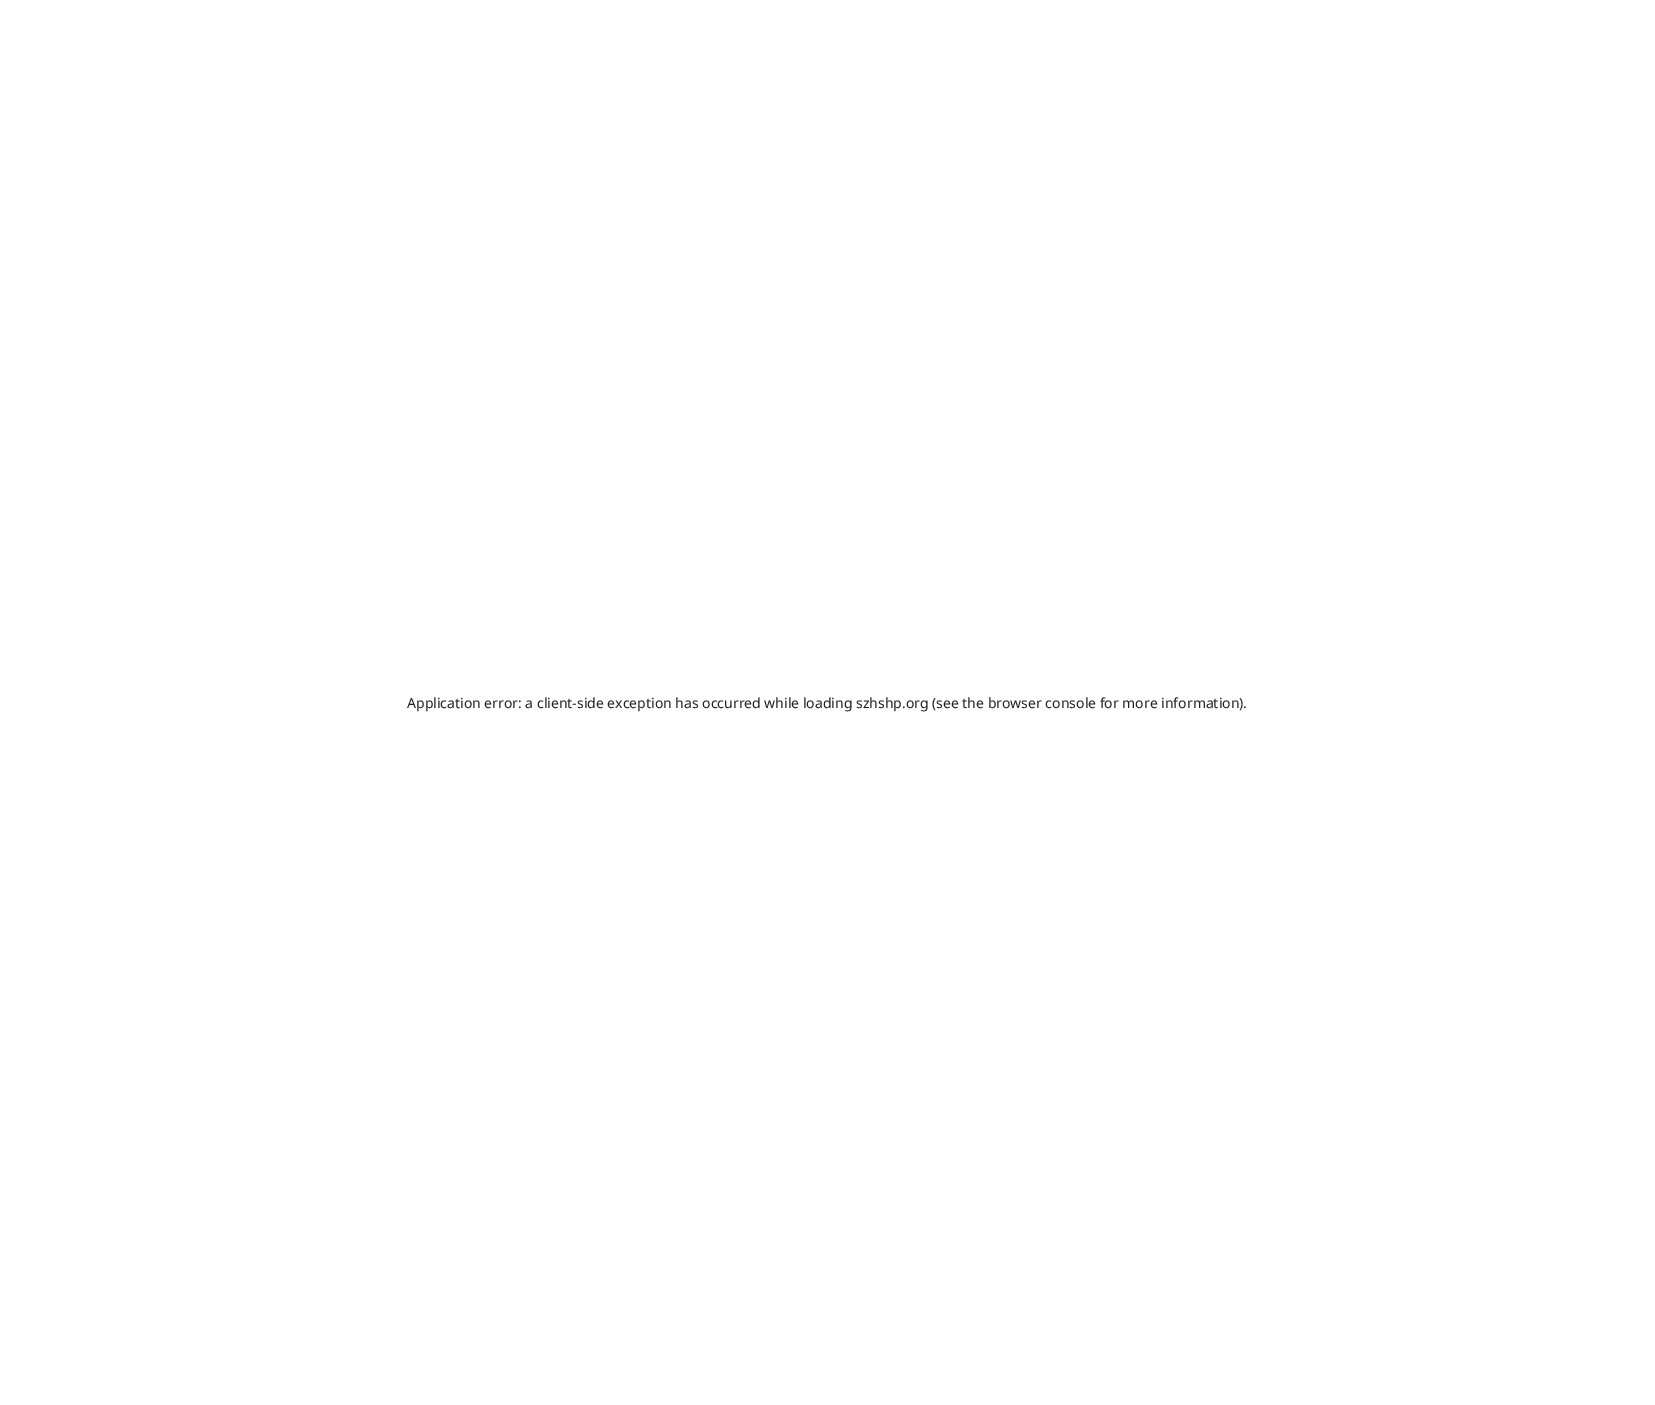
%!PS
<< /PageSize [1655 1405] >> setpagedevice
/rgb { 3 { 255 div 3 1 roll } repeat setrgbcolor } def
/font { [ exch dup neg 0 0 3 -1 roll 0 0 ] selectfont } def
/text { moveto show } def
0 1405 translate 1 -1 scale
4 setmiterlimit
255 255 255 rgb
0 0 1655 1405 rectfill
/NotoSans-Regular 14 font
33 33 33 rgb
(Application error: a client-side exception has occurred while loading szhshp.org \(see the browser console for more information\).) 407 708 text
showpage
